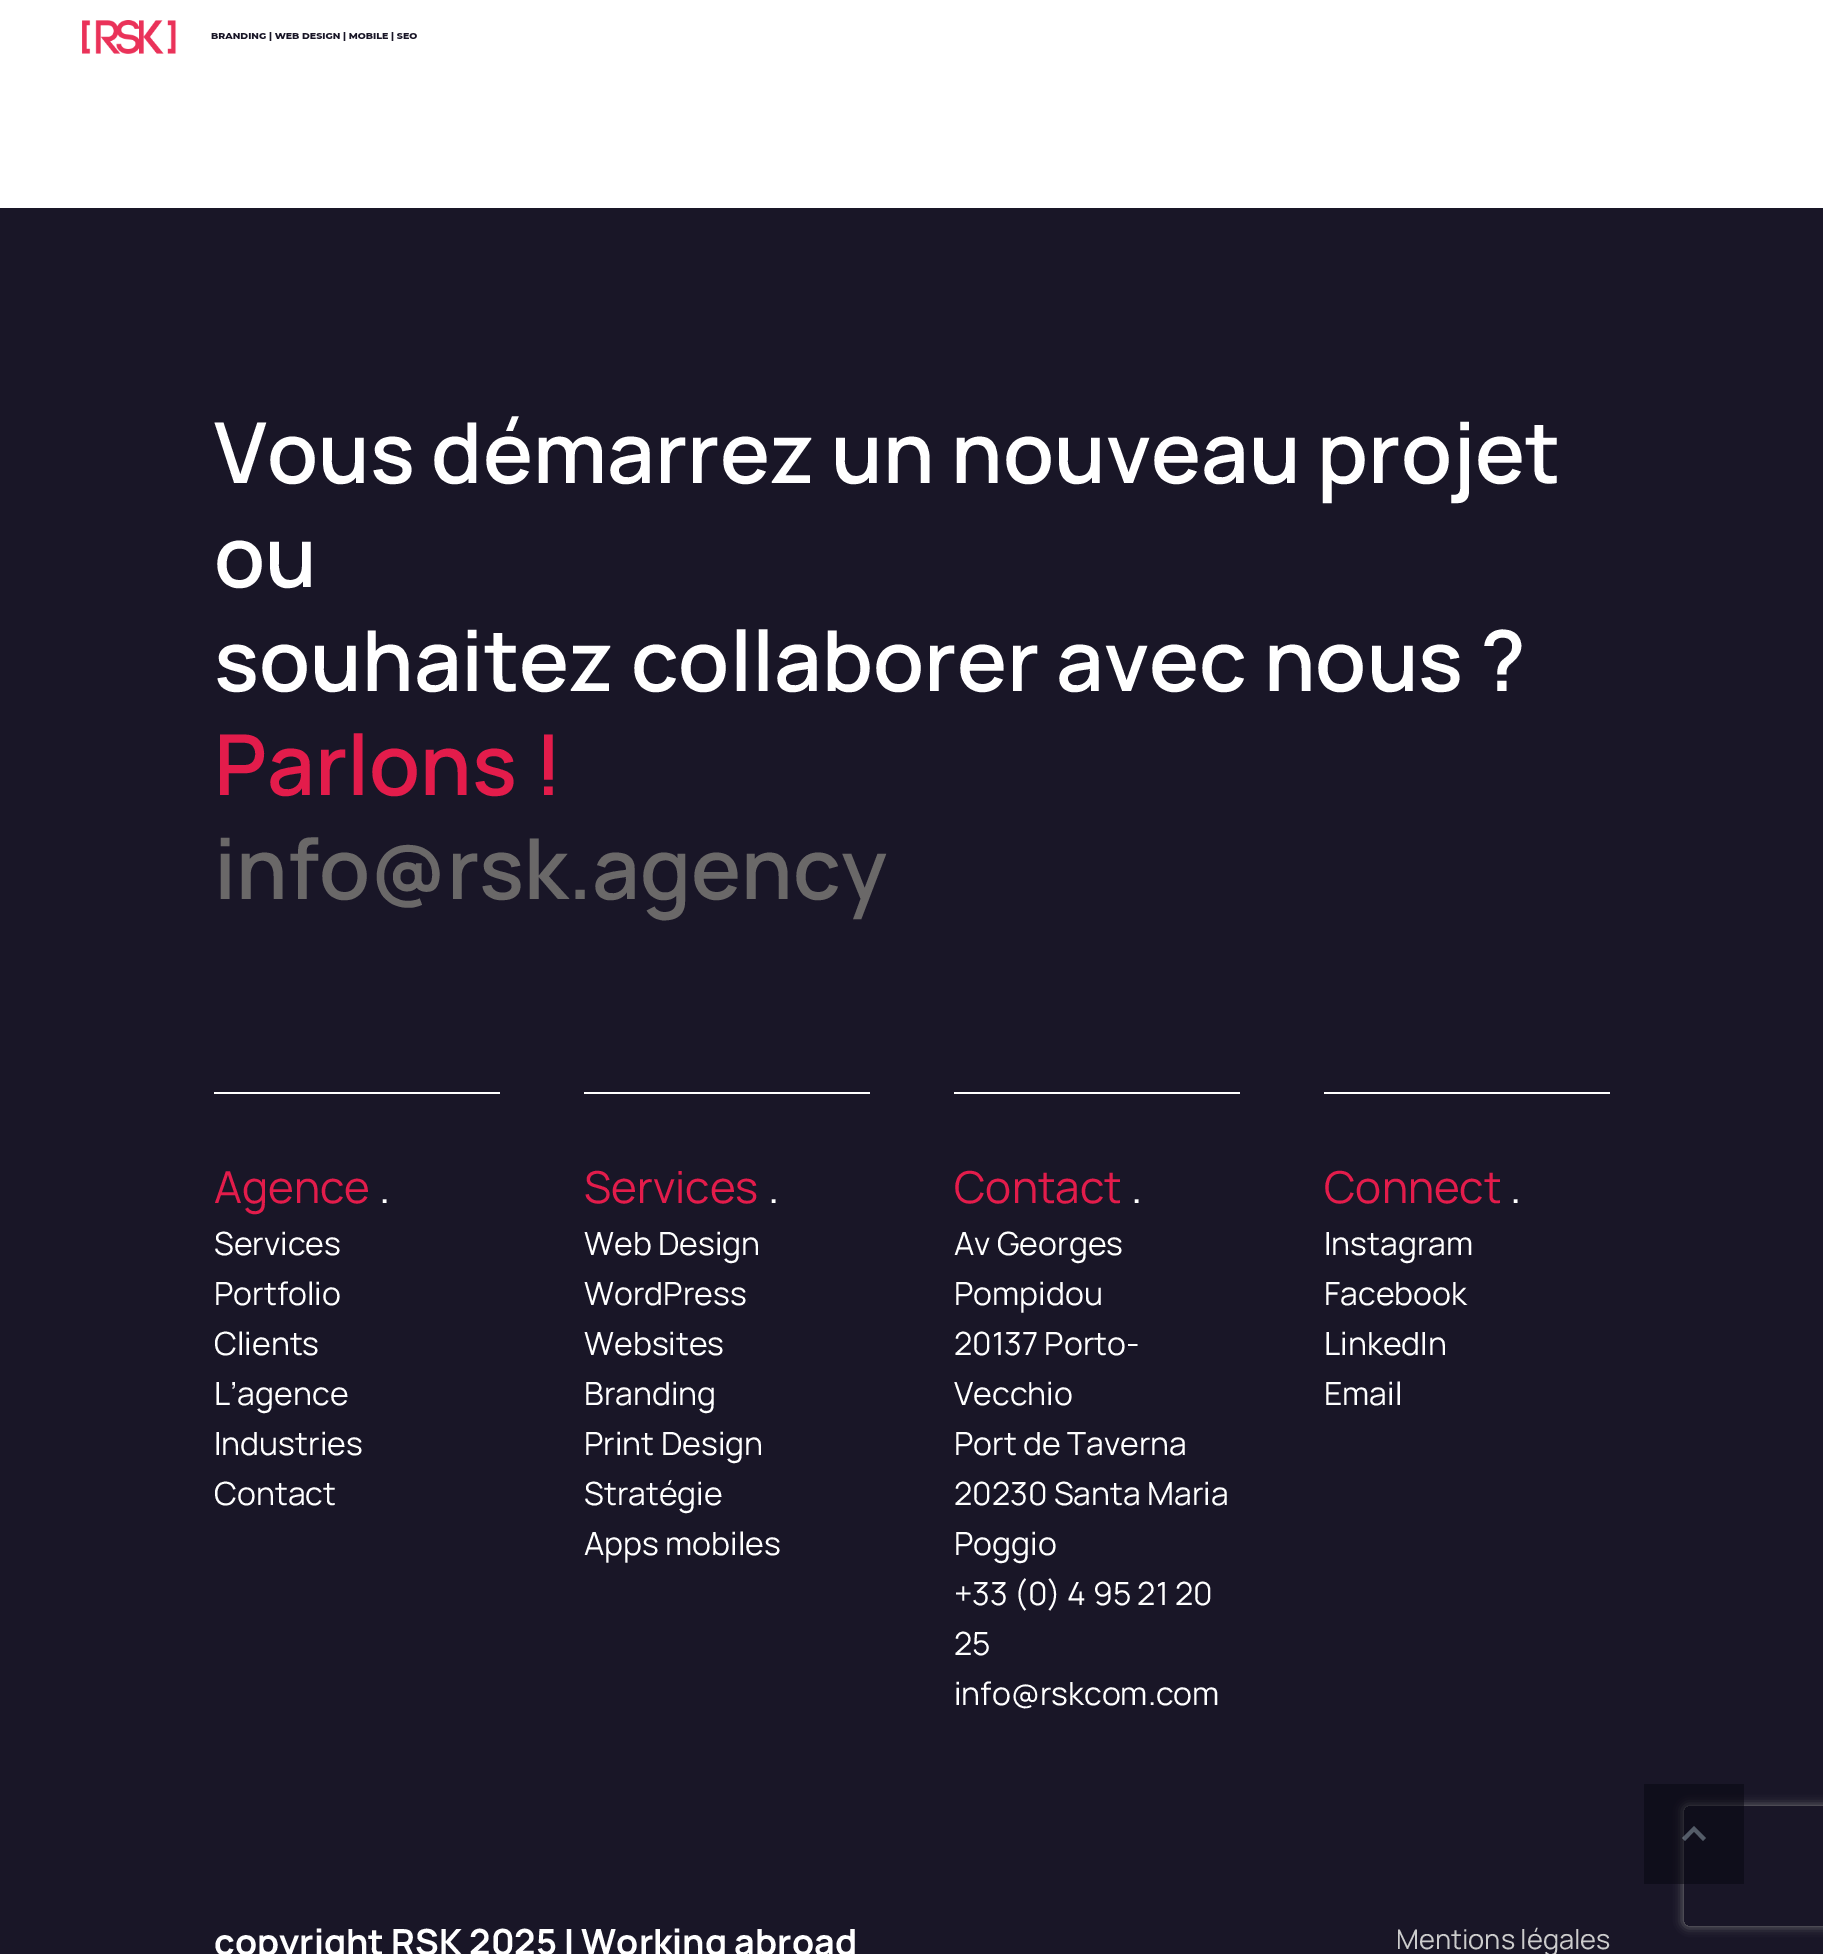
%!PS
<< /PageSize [1823 1954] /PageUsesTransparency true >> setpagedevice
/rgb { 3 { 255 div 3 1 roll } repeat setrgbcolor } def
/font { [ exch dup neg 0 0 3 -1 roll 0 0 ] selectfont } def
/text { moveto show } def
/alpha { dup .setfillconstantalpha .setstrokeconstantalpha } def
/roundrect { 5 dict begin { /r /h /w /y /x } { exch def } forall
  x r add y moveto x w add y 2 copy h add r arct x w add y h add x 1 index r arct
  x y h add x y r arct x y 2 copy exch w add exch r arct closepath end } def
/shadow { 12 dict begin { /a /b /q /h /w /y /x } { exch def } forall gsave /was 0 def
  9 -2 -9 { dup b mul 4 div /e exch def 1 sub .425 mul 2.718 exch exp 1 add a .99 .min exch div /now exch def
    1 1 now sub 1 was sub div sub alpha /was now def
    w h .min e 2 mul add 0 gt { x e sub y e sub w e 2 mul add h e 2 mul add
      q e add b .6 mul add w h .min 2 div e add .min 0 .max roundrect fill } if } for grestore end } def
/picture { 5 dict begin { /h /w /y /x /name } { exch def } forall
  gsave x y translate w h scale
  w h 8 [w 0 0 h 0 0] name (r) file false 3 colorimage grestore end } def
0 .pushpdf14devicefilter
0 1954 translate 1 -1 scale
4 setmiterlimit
25 22 39 rgb
0 0 1823 1954 rectfill
255 255 255 rgb
0 0 1823 208 rectfill
(img_01.rgb) 82 20 335 34 picture
214 1092 286 2 rectfill
584 1092 286 2 rectfill
954 1092 286 2 rectfill
1324 1092 286 2 rectfill
gsave
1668 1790 moveto 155 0 rlineto 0 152 rlineto -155 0 rlineto closepath 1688 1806 moveto 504 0 rlineto 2 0 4 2 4 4 rcurveto 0 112 rlineto 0 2 -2 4 -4 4 rcurveto -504 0 rlineto -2 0 -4 -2 -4 -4 rcurveto 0 -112 rlineto 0 -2 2 -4 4 -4 rcurveto closepath eoclip newpath
128 128 128 rgb
1684 1806 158 120 4 5 1 shadow
grestore
0.5 alpha
6 6 15 rgb
1644 1784 100 100 rectfill
153 169 181 rgb
1685 1841 moveto 9 -9.5 rlineto 9 9.5 rlineto 3 -3 rlineto -12 -12 rlineto -12 12 rlineto closepath fill
/Manrope-SemiBold 84 font
1 alpha
255 255 255 rgb
(Vous démarrez un nouveau projet) 214 483 text
(ou) 214 587 text
(souhaitez collaborer avec nous ?) 214 691 text
227 28 75 rgb
(Parlons !) 214 795 text
106 104 104 rgb
(info@rsk.agency) 214 899 text
/Manrope-ExtraLight 44 font
227 28 75 rgb
(Agence) 214 1203 text
255 255 255 rgb
(.) 379 1203 text
/Manrope-ExtraLight 32 font
(Services) 214 1255 text
(Portfolio) 214 1305 text
(Clients) 214 1355 text
(L’agence) 214 1405 text
(Industries) 214 1455 text
(Contact) 214 1505 text
/Manrope-ExtraLight 44 font
227 28 75 rgb
(Services) 584 1203 text
255 255 255 rgb
(.) 768 1203 text
/Manrope-ExtraLight 32 font
(Web Design) 584 1255 text
(WordPress) 584 1305 text
(Websites) 584 1355 text
(Branding) 584 1405 text
(Print Design) 584 1455 text
(Stratégie) 584 1505 text
(Apps mobiles) 584 1555 text
/Manrope-ExtraLight 44 font
227 28 75 rgb
(Contact) 954 1203 text
255 255 255 rgb
(.) 1131 1203 text
/Manrope-ExtraLight 32 font
(Av Georges) 954 1255 text
(Pompidou) 954 1305 text
(20137 Porto-) 954 1355 text
(Vecchio) 954 1405 text
(Port de Taverna) 954 1455 text
(20230 Santa Maria) 954 1505 text
(Poggio) 954 1555 text
(+33 \(0\) 4 95 21 20) 954 1605 text
(25) 954 1655 text
(info@rskcom.com) 954 1705 text
/Manrope-ExtraLight 44 font
227 28 75 rgb
(Connect) 1324 1203 text
255 255 255 rgb
(.) 1510 1203 text
/Manrope-ExtraLight 32 font
(Instagram) 1324 1255 text
(Facebook) 1324 1305 text
(LinkedIn) 1324 1355 text
(Email) 1324 1405 text
/Manrope-Bold 36 font
(copyright RSK 2025 I Working abroad) 214 1955 text
/Manrope-ExtraLight 27.25 font
204 204 204 rgb
(Mentions légales) 1396 1949 text
.poppdf14devicefilter showpage
